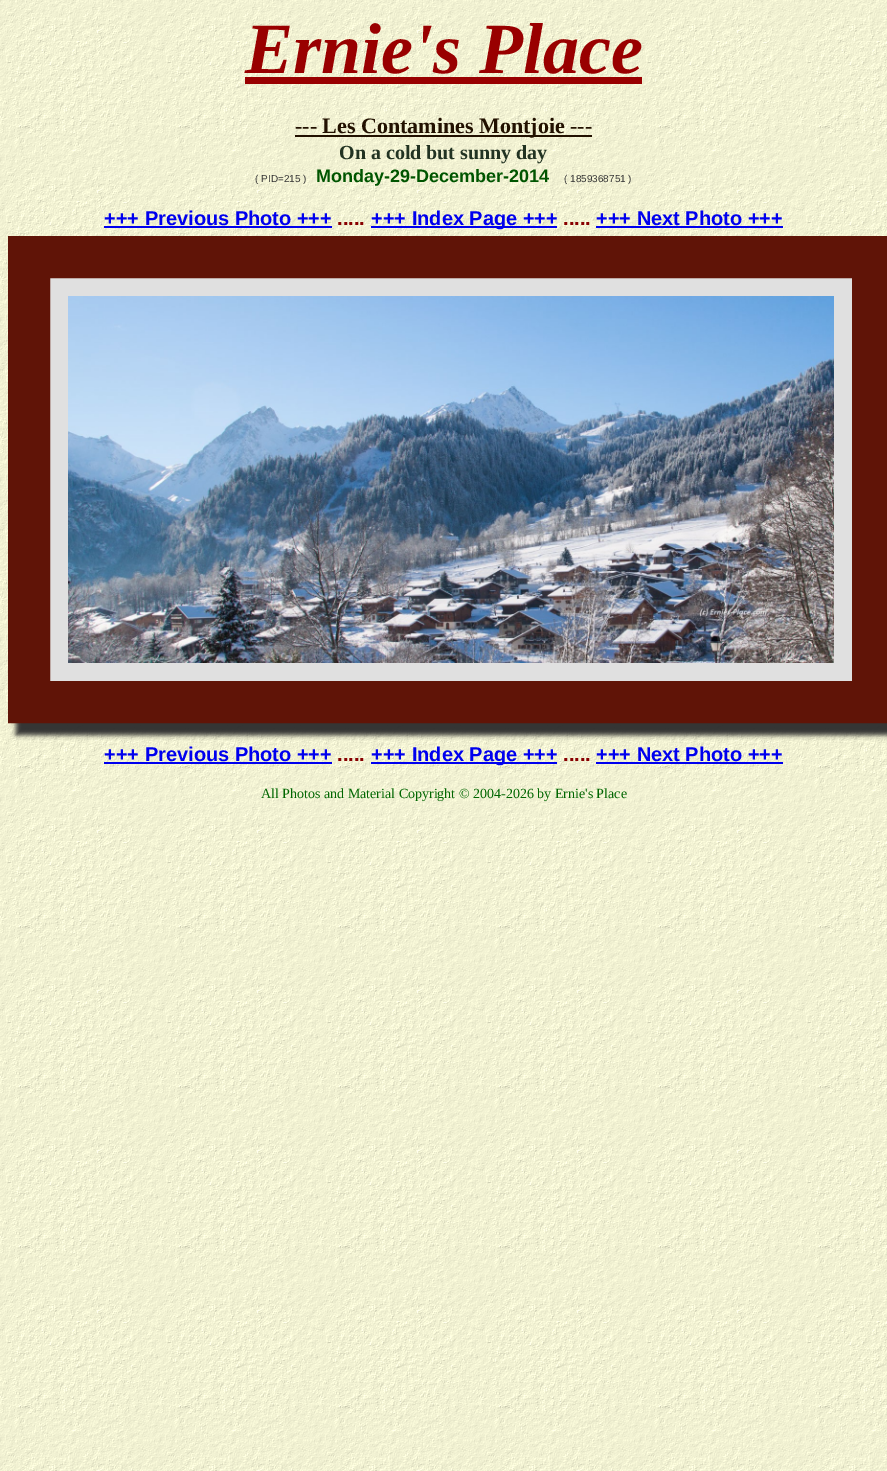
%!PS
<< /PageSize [887 1471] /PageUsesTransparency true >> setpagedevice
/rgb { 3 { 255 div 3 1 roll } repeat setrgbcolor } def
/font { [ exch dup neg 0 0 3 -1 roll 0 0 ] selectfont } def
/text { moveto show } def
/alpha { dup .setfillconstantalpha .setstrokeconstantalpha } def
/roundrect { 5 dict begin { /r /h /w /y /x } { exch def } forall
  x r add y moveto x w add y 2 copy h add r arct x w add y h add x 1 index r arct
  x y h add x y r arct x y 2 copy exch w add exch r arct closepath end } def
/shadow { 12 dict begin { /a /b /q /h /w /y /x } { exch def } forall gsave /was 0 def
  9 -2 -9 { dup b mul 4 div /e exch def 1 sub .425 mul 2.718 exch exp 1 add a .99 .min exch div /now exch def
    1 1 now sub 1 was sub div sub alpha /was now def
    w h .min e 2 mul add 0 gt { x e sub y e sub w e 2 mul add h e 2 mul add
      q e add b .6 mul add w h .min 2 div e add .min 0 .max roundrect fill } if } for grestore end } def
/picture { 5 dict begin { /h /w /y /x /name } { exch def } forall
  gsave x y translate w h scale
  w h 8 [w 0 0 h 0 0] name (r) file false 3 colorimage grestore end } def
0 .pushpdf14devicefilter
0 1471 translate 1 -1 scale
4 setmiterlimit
255 255 255 rgb
0 0 887 1471 rectfill
(img_01.rgb) 0 0 887 1471 picture
153 0 0 rgb
245 77 397 7 rectfill
34 17 0 rgb
295 135 297 2 rectfill
0 0 238 rgb
104 226 228 2 rectfill
371 226 186 2 rectfill
596 226 187 2 rectfill
48 48 48 rgb
16 244 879 491 0 2.5 1 shadow
224 224 224 rgb
29 257 moveto 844 0 rlineto 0 445 rlineto -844 0 rlineto closepath gsave fill grestore
96 20 7 rgb
42 setlinewidth
stroke
(img_02.rgb) 68 296 766 367 picture
0 0 238 rgb
104 762 228 2 rectfill
371 762 186 2 rectfill
596 762 187 2 rectfill
/LiberationSerif-BoldItalic 72 font
153 0 0 rgb
(Ernie's Place) 245 73 text
/LiberationSerif-Bold 22 font
34 17 0 rgb
(--- Les Contamines Montjoie ---) 295 133 text
/LiberationSerif-Bold 20 font
34 51 34 rgb
(On a cold but sunny day) 339 159 text
/LiberationSans-Regular 10 font
51 51 51 rgb
(\( PID=215 \)) 255 182 text
/LiberationSans-Bold 18 font
0 85 0 rgb
(Monday-29-December-2014) 316 182 text
/LiberationSans-Regular 10 font
51 51 51 rgb
(\( 1859368751 \)) 564 182 text
/LiberationSans-Bold 20 font
0 0 238 rgb
(+++ Previous Photo +++) 104 225 text
136 0 0 rgb
(.....) 337 225 text
0 0 238 rgb
(+++ Index Page +++) 371 225 text
136 0 0 rgb
(.....) 563 225 text
0 0 238 rgb
(+++ Next Photo +++) 596 225 text
(+++ Previous Photo +++) 104 761 text
136 0 0 rgb
(.....) 337 761 text
0 0 238 rgb
(+++ Index Page +++) 371 761 text
136 0 0 rgb
(.....) 563 761 text
0 0 238 rgb
(+++ Next Photo +++) 596 761 text
/LiberationSerif-Regular 14 font
0 102 0 rgb
(All Photos and Material Copyright © 2004-2026 by Ernie's Place) 261 798 text
.poppdf14devicefilter showpage
